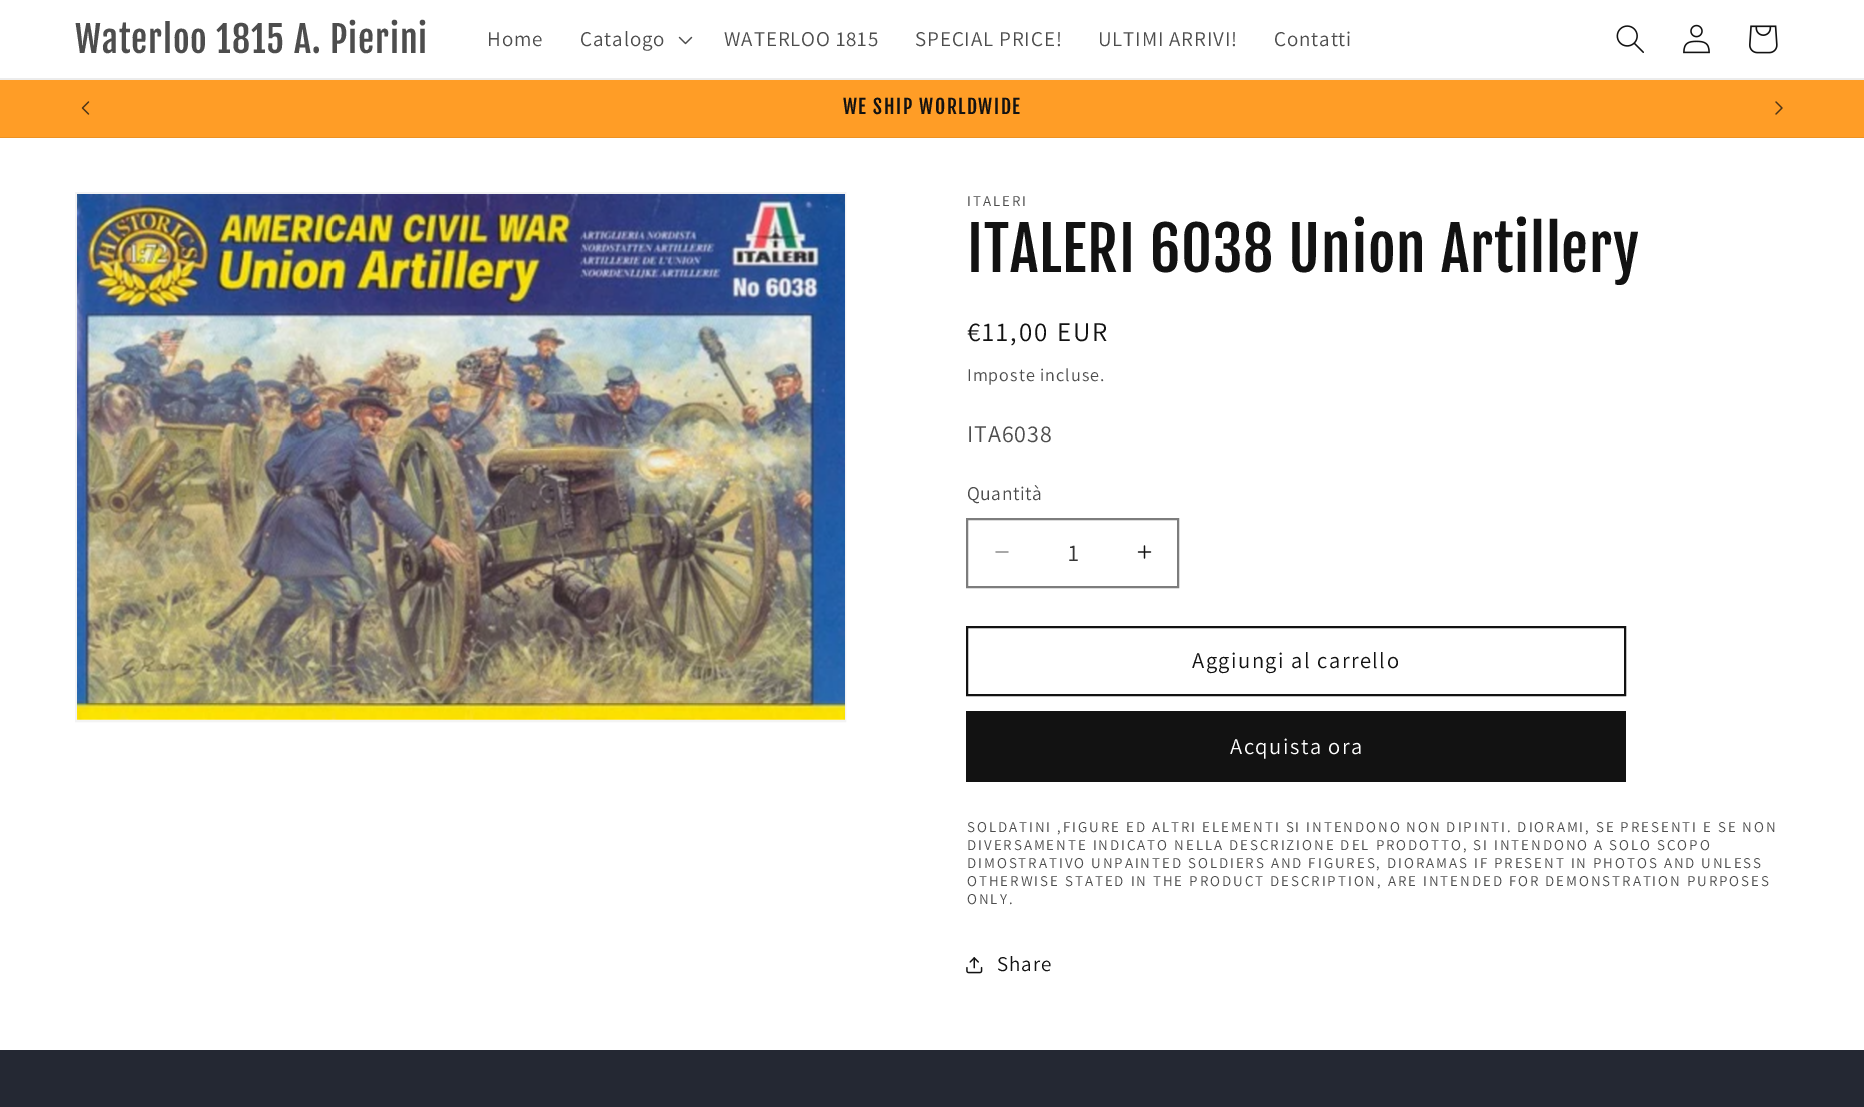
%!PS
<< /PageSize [1864 1107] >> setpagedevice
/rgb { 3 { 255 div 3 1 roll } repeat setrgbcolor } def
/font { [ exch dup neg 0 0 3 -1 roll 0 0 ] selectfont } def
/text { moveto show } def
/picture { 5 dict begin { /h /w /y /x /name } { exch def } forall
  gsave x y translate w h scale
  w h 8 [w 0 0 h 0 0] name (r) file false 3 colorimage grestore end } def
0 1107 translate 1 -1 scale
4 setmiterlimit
255 255 255 rgb
0 0 1864 1107 rectfill
236 236 236 rgb
0 78 1864 2 rectfill
(img_01.rgb) 678 36 15 9 picture
(img_02.rgb) 1616 25 28 28 picture
(img_03.rgb) 1683 24 27 30 picture
(img_04.rgb) 1749 25 29 29 picture
255 157 38 rgb
0 80 1864 57 rectfill
236 146 36 rgb
0 137 1864 1 rectfill
(img_05.rgb) 81 101 9 14 picture
(img_06.rgb) 1775 101 8 14 picture
243 243 243 rgb
2 setlinewidth
76 193 769 528 rectstroke
(img_07.rgb) 77 194 768 526 picture
(img_08.rgb) 995 551 14 2 picture
(img_09.rgb) 1137 545 15 14 picture
125 125 125 rgb
967 519 211 68 rectstroke
18 18 18 rgb
967 627 658 68 rectstroke
966 711 660 71 rectfill
(img_10.rgb) 966 957 17 17 picture
36 40 51 rgb
0 1050 1864 57 rectfill
/FjallaOne-Regular 36 font
77 77 77 rgb
75 53 moveto 0.9 0 (Waterloo 1815 A. Pierini) ashow
/Assistant-Regular 21 font
487 46 moveto 0.9 0 (Home) ashow
580 46 moveto 0.9 0 (Catalogo) ashow
724 46 moveto 0.9 0 (WATERLOO 1815) ashow
915 46 moveto 0.9 0 (SPECIAL PRICE!) ashow
1098 46 moveto 0.9 0 (ULTIMI ARRIVI!) ashow
1274 46 moveto 0.9 0 (Contatti) ashow
/FjallaOne-Regular 19.5 font
18 18 18 rgb
843 114 moveto 1.5 0 (WE SHIP WORLDWIDE) ashow
/Assistant-Regular 15 font
77 77 77 rgb
967 206 moveto 1.95 0 (ITALERI) ashow
/FjallaOne-Regular 60 font
18 18 18 rgb
967 272 moveto 0.9 0 (ITALERI 6038 Union Artillery) ashow
/Assistant-Regular 27 font
967 341 moveto 1.95 0 (€11,00 EUR) ashow
/Assistant-Regular 18 font
77 77 77 rgb
967 381 moveto 1 0 (Imposte incluse.) ashow
/Assistant-Regular 24 font
967 442 moveto 0.9 0 (ITA6038) ashow
/Assistant-Regular 19.5 font
967 500 moveto 0.5 0 (Quantità) ashow
/Assistant-Regular 24 font
54 54 54 rgb
(1) 1068 561 text
/Assistant-Regular 22.5 font
18 18 18 rgb
1192 668 moveto 1.5 0 (Aggiungi al carrello) ashow
255 255 255 rgb
1230 754 moveto 1.5 0 (Acquista ora) ashow
/Assistant-Regular 15 font
77 77 77 rgb
967 832 moveto 1.95 0 (SOLDATINI ,FIGURE ED ALTRI ELEMENTI SI INTENDONO NON DIPINTI. DIORAMI, SE PRESENTI E SE NON) ashow
967 850 moveto 1.95 0 (DIVERSAMENTE INDICATO NELLA DESCRIZIONE DEL PRODOTTO, SI INTENDONO A SOLO SCOPO) ashow
967 868 moveto 1.95 0 (DIMOSTRATIVO UNPAINTED SOLDIERS AND FIGURES, DIORAMAS IF PRESENT IN PHOTOS AND UNLESS) ashow
967 886 moveto 1.95 0 (OTHERWISE STATED IN THE PRODUCT DESCRIPTION, ARE INTENDED FOR DEMONSTRATION PURPOSES) ashow
967 904 moveto 1.95 0 (ONLY.) ashow
/Assistant-Regular 21 font
18 18 18 rgb
997 971 moveto 0.9 0 (Share) ashow
showpage
